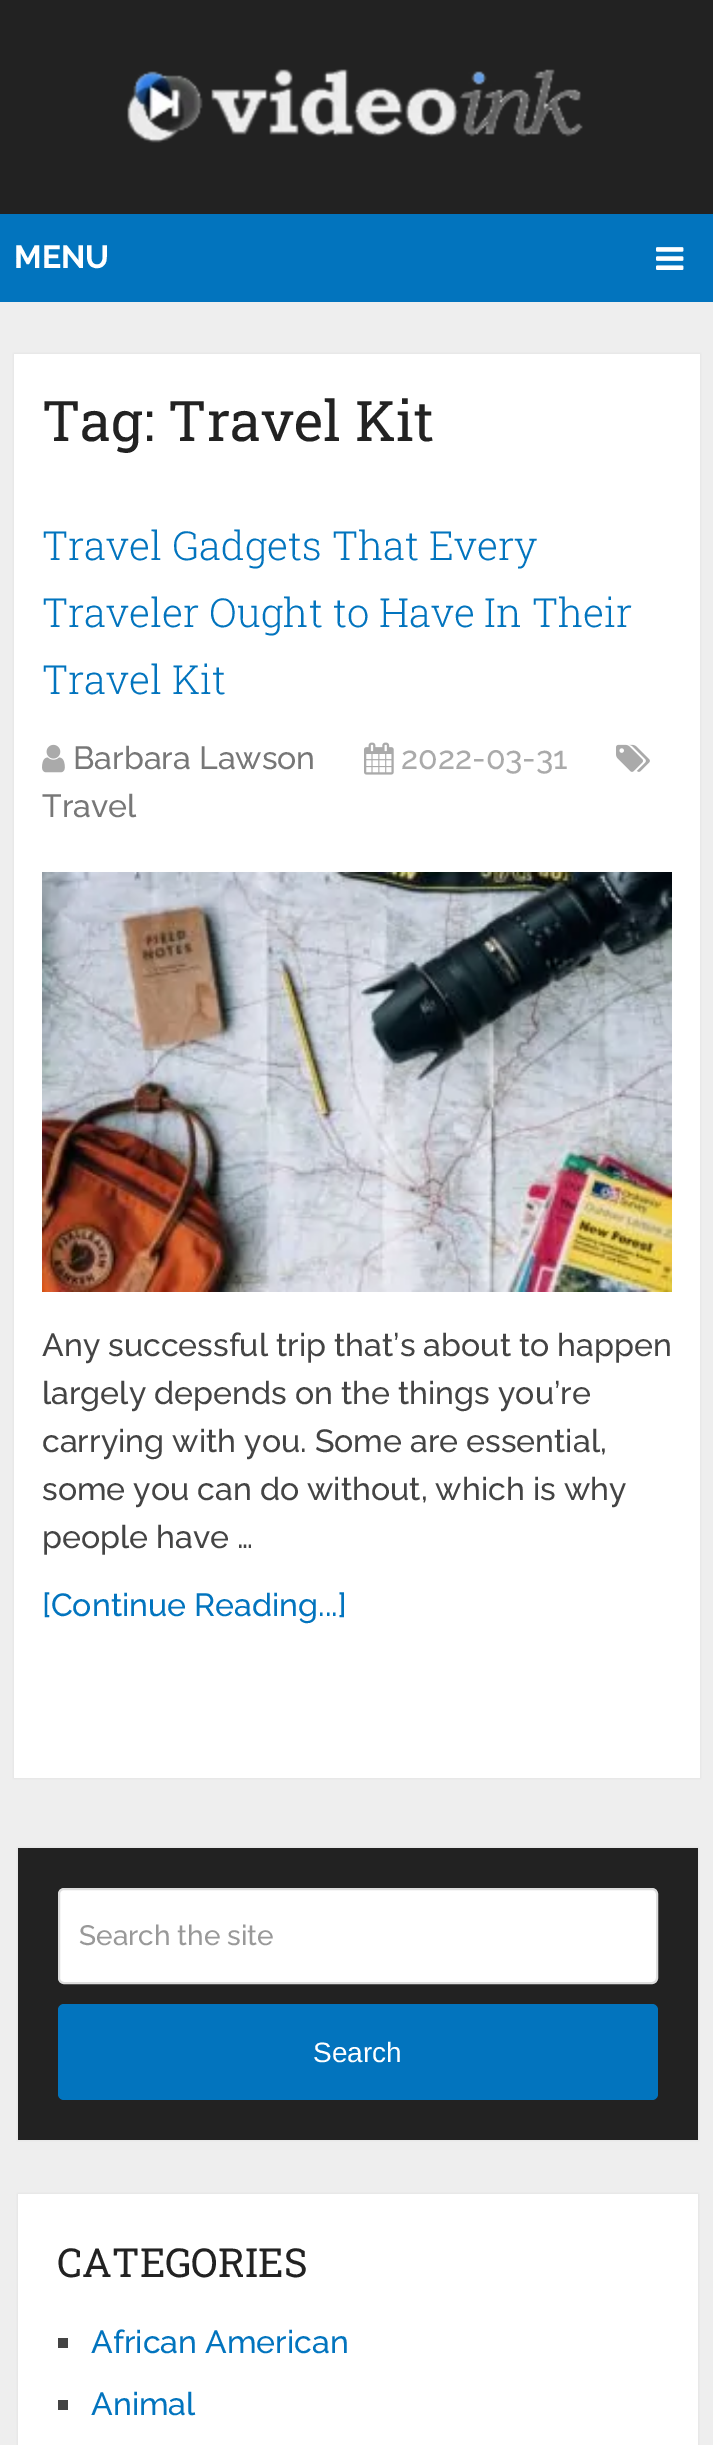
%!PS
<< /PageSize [713 2445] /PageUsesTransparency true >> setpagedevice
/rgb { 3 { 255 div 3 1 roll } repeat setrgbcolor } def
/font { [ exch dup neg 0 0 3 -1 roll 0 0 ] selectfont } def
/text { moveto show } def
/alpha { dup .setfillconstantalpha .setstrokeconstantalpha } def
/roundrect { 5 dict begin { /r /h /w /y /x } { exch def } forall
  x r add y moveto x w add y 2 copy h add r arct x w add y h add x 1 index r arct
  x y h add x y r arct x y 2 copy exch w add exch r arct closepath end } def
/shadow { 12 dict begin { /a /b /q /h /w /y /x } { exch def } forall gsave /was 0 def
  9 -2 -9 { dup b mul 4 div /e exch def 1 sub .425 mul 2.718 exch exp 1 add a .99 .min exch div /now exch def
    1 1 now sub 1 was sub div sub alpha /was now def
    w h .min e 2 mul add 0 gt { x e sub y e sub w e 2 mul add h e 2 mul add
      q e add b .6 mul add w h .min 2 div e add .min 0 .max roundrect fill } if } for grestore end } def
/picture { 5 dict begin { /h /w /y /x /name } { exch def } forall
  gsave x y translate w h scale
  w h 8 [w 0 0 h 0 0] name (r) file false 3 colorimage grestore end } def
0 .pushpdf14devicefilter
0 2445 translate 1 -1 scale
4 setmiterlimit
238 238 238 rgb
0 0 713 2445 rectfill
34 34 34 rgb
0 0 713 214 rectfill
(img_01.rgb) 127 69 456 74 picture
2 116 190 rgb
0 214 713 88 rectfill
(img_02.rgb) 656 247 28 23 picture
50 50 50 rgb
14 354 686 1424 0 1 0.1 shadow
255 255 255 rgb
14 354 686 1424 rectfill
(img_03.rgb) 42 744 23 29 picture
(img_04.rgb) 364 742 30 33 picture
(img_05.rgb) 616 744 34 28 picture
(img_06.rgb) 42 872 630 420 picture
50 50 50 rgb
18 1848 680 292 0 1 0.1 shadow
34 34 34 rgb
18 1848 680 292 rectfill
255 255 255 rgb
59 1889 598 94 5 roundrect gsave fill grestore
221 221 221 rgb
2 setlinewidth
stroke
2 116 190 rgb
58 2004 600 96 6 roundrect fill
50 50 50 rgb
18 2194 680 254 0 1 0.1 shadow
255 255 255 rgb
18 2194 680 251 rectfill
68 68 68 rgb
58 2338 10 10 rectfill
58 2400 10 10 rectfill
/Raleway-Bold 32 font
255 255 255 rgb
(MENU) 14 268 text
/RobotoSlab-Regular 56 font
34 34 34 rgb
(Tag: Travel Kit) 42 441 text
/RobotoSlab-Light 40 font
2 116 190 rgb
(Travel Gadgets That Every) 42 560 text
(Traveler Ought to Have In Their) 42 627 text
(Travel Kit) 42 694 text
/Raleway-Medium 32 font
119 119 119 rgb
(Barbara Lawson) 73 769 text
170 170 170 rgb
(2022-03-31) 401 769 text
119 119 119 rgb
(Travel) 42 817 text
68 68 68 rgb
(Any successful trip that’s about to happen) 42 1356 text
(largely depends on the things you’re) 42 1404 text
(carrying with you. Some are essential,) 42 1452 text
(some you can do without, which is why) 42 1500 text
(people have …) 42 1548 text
2 116 190 rgb
([Continue Reading...]) 42 1616 text
/Raleway-Medium 28 font
153 153 153 rgb
(Search the site) 79 1945 text
/LiberationSans-Regular 28 font
255 255 255 rgb
(Search) 313 2062 text
/RobotoSlab-Regular 40 font
34 34 34 rgb
(CATEGORIES) 57 2277 text
/Raleway-Medium 32 font
2 116 190 rgb
(African American) 91 2353 text
(Animal) 91 2415 text
.poppdf14devicefilter showpage
